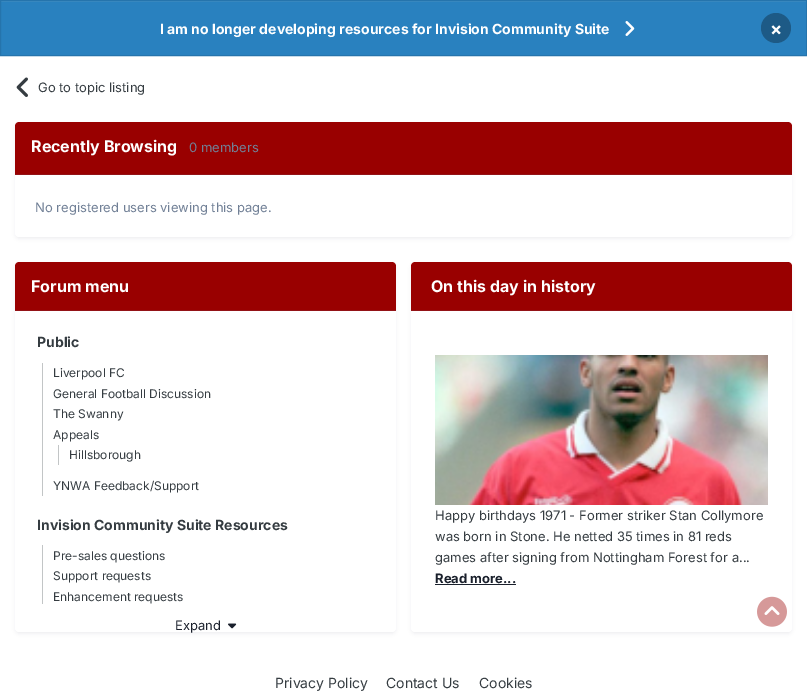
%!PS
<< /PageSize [807 695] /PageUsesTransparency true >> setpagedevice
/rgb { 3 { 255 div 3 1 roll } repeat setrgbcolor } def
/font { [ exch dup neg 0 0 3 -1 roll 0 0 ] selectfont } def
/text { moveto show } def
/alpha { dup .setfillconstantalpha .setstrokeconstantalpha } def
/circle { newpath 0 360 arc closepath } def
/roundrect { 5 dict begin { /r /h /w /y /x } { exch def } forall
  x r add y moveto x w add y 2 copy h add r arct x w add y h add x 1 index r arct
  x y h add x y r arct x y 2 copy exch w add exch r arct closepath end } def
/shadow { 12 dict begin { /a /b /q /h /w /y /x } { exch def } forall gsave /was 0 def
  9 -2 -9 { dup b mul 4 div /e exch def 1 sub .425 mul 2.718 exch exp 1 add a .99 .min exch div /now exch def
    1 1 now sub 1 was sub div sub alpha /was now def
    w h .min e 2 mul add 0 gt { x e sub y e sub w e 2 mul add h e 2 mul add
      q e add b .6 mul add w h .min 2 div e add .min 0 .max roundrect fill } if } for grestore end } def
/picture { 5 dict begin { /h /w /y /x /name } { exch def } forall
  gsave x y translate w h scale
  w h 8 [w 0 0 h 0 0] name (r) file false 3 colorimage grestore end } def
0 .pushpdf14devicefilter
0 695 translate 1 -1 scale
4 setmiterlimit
255 255 255 rgb
0 0 807 695 rectfill
41 129 191 rgb
1 2 805 53 rectfill
62 142 197 rgb
1 1 805 1 rectfill
37 116 172 rgb
0.5 0.5 806 55 rectstroke
(img_01.rgb) 625 21 10 15 picture
29 90 134 rgb
776 28 15 circle fill
(img_02.rgb) 16 77 12 20 picture
45 55 72 rgb
16 125 775 113 3 2 0.1 shadow
255 255 255 rgb
15 122 777 115 4 roundrect fill
153 0 0 rgb
19 122 moveto 769 0 rlineto 2 0 4 2 4 4 rcurveto 0 49 rlineto -777 0 rlineto 0 -49 rlineto 0 -2 2 -4 4 -4 rcurveto closepath fill
147 19 23 rgb
15 174 777 1 rectfill
45 55 72 rgb
16 265 379 368 3 2 0.1 shadow
255 255 255 rgb
15 262 381 370 4 roundrect fill
153 0 0 rgb
19 262 moveto 373 0 rlineto 2 0 4 2 4 4 rcurveto 0 45 rlineto -381 0 rlineto 0 -45 rlineto 0 -2 2 -4 4 -4 rcurveto closepath fill
147 19 23 rgb
15 310 381 1 rectfill
194 197 198 rgb
42 363 1 133 rectfill
58 445 1 20 rectfill
42 545 1 59 rectfill
(img_03.rgb) 228 623 9 6 picture
45 55 72 rgb
412 265 379 368 3 2 0.1 shadow
255 255 255 rgb
411 262 381 370 4 roundrect fill
153 0 0 rgb
415 262 moveto 373 0 rlineto 2 0 4 2 4 4 rcurveto 0 45 rlineto -381 0 rlineto 0 -45 rlineto 0 -2 2 -4 4 -4 rcurveto closepath fill
147 19 23 rgb
411 310 381 1 rectfill
(img_04.rgb) 435 355 333 150 picture
26 32 44 rgb
435 584 81 1 rectfill
(img_05.rgb) 757 596 30 31 picture
/Inter-Bold 14 font
255 255 255 rgb
(I am no longer developing resources for Invision Community Suite) 160 34 text
/Inter-Bold 18 font
(×) 770 35 text
/Inter-Regular 13 font
53 60 65 rgb
(Go to topic listing) 38 92 text
/Inter-Bold 16 font
255 255 255 rgb
(Recently Browsing) 31 152 text
/Inter-Regular 13 font
113 128 150 rgb
(0 members) 189 152 text
(No registered users viewing this page.) 35 212 text
/Inter-Bold 16 font
255 255 255 rgb
(Forum menu) 31 292 text
/Inter-Bold 14 font
53 60 65 rgb
(Public) 37 347 text
/Inter-Regular 12 font
(Liverpool FC) 53 377 text
(General Football Discussion) 53 398 text
(The Swanny) 53 418 text
(Appeals) 53 439 text
(Hillsborough) 69 459 text
(YNWA Feedback/Support) 53 490 text
/Inter-Bold 14 font
(Invision Community Suite Resources) 37 530 text
/Inter-Regular 12 font
(Pre-sales questions) 53 560 text
(Support requests) 53 580 text
(Enhancement requests) 53 601 text
/Inter-Regular 13 font
26 32 44 rgb
(Expand) 175 630 text
/Inter-Bold 16 font
255 255 255 rgb
(On this day in history) 431 292 text
/Inter-Regular 13 font
53 60 65 rgb
(Happy birthdays 1971 - Former striker Stan Collymore) 435 520 text
(was born in Stone. He netted 35 times in 81 reds) 435 541 text
(games after signing from Nottingham Forest for a...) 435 562 text
/Inter-Bold 13 font
26 32 44 rgb
(Read more...) 435 583 text
/Inter-Regular 14 font
53 60 65 rgb
(Privacy Policy) 275 688 text
(Contact Us) 386 688 text
(Cookies) 479 688 text
.poppdf14devicefilter showpage
